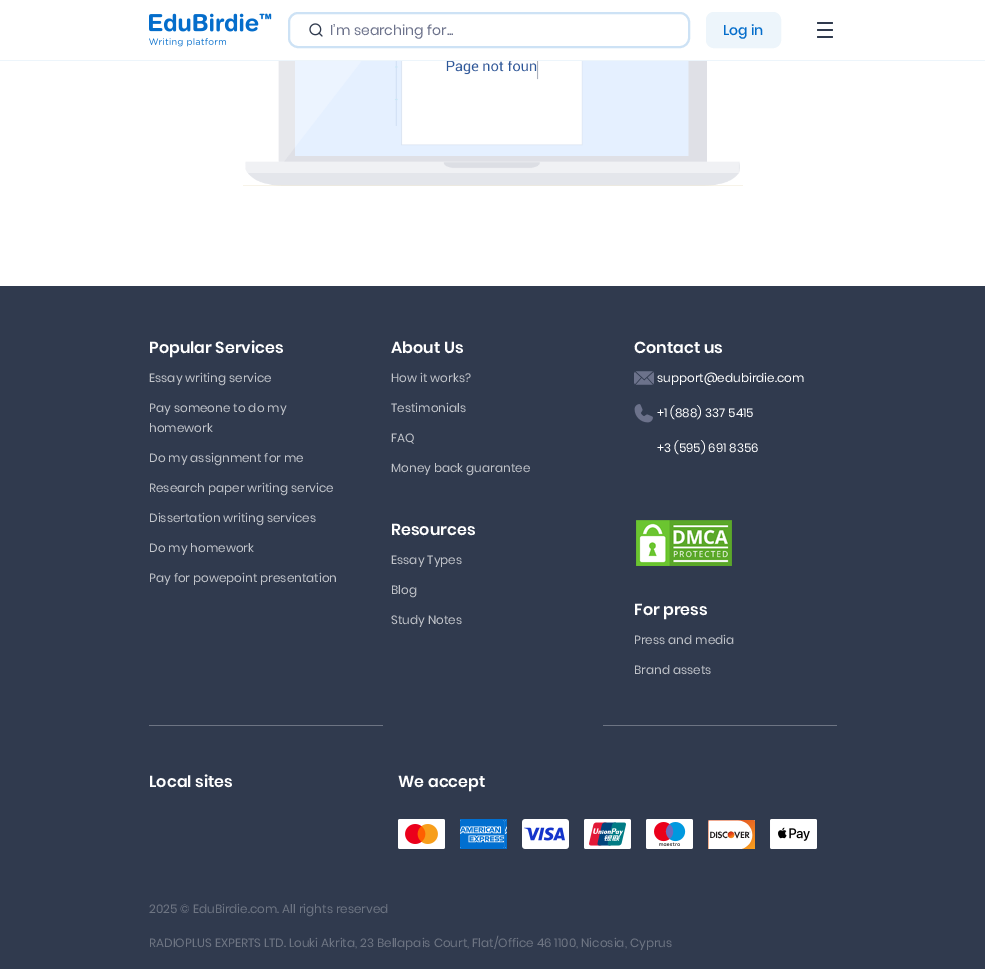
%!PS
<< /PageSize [985 969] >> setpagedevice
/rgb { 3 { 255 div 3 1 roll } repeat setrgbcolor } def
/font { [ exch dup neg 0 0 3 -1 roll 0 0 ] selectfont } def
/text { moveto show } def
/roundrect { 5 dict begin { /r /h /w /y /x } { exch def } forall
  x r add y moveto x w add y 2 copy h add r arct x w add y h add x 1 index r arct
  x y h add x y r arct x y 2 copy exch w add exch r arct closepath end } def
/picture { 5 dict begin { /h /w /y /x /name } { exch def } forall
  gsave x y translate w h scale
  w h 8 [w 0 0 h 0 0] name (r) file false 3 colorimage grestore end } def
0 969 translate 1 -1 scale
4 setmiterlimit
255 255 255 rgb
0 0 985 969 rectfill
237 245 251 rgb
0 60 985 1 rectfill
(img_01.rgb) 149 13 123 34 picture
205 226 245 rgb
2 setlinewidth
289 13 400 34 9 roundrect stroke
(img_02.rgb) 309 23 14 14 picture
237 245 251 rgb
706.5 12.5 74 35 7.5 roundrect gsave fill grestore
1 setlinewidth
stroke
48 58 78 rgb
817 22 16 2 1 roundrect fill
817 29 16 2 1 roundrect fill
817 36 16 2 1 roundrect fill
(img_03.rgb) 243 61 500 125 picture
0 286 985 683 rectfill
(img_04.rgb) 634 371 20 14 picture
(img_05.rgb) 634 404 19 19 picture
(img_06.rgb) 636 520 96 46 picture
109 116 131 rgb
149 725 234 1 rectfill
603 725 234 1 rectfill
(img_07.rgb) 398 819 47 30 picture
1 111 208 rgb
460 819 47 30 rectfill
(img_08.rgb) 460 820 47 28 picture
(img_09.rgb) 522 819 47 30 picture
(img_10.rgb) 584 819 47 30 picture
(img_11.rgb) 646 819 47 30 picture
(img_12.rgb) 708 820 47 29 picture
(img_13.rgb) 770 819 47 30 picture
/Poppins-Regular 14 font
108 114 139 rgb
(I’m searching for...) 330 35 text
/Poppins-Medium 14 font
4 109 203 rgb
(Log in) 723 35 text
/Poppins-SemiBold 16 font
255 255 255 rgb
(Popular Services) 149 353 text
/Poppins-Regular 12 font
193 196 202 rgb
(Essay writing service) 149 382 text
(Pay someone to do my) 149 412 text
(homework) 149 432 text
(Do my assignment for me) 149 462 text
(Research paper writing service) 149 492 text
(Dissertation writing services) 149 522 text
(Do my homework) 149 552 text
(Pay for powepoint presentation) 149 582 text
/Poppins-SemiBold 16 font
255 255 255 rgb
(About Us) 391 353 text
/Poppins-Regular 12 font
193 196 202 rgb
(How it works?) 391 382 text
(Testimonials) 391 412 text
(FAQ) 391 442 text
(Money back guarantee) 391 472 text
/Poppins-SemiBold 16 font
255 255 255 rgb
(Contact us) 634 353 text
/Poppins-Regular 12 font
(support@edubirdie.com) 657 382 text
(+1 \(888\) 337 5415) 657 417 text
(+3 \(595\) 691 8356) 657 452 text
/Poppins-SemiBold 16 font
(Resources) 391 535 text
/Poppins-Regular 12 font
193 196 202 rgb
(Essay Types) 391 564 text
(Blog) 391 594 text
(Study Notes) 391 624 text
/Poppins-SemiBold 16 font
255 255 255 rgb
(For press) 634 615 text
/Poppins-Regular 12 font
193 196 202 rgb
(Press and media) 634 644 text
(Brand assets) 634 674 text
/Poppins-SemiBold 16 font
255 255 255 rgb
(Local sites) 149 787 text
(We accept) 398 787 text
/Poppins-Regular 12 font
110 117 131 rgb
(2025 © EduBirdie.com. All rights reserved) 149 913 text
(RADIOPLUS EXPERTS LTD. Louki Akrita, 23 Bellapais Court, Flat/Office 46 1100, Nicosia, Cyprus) 149 947 text
showpage
